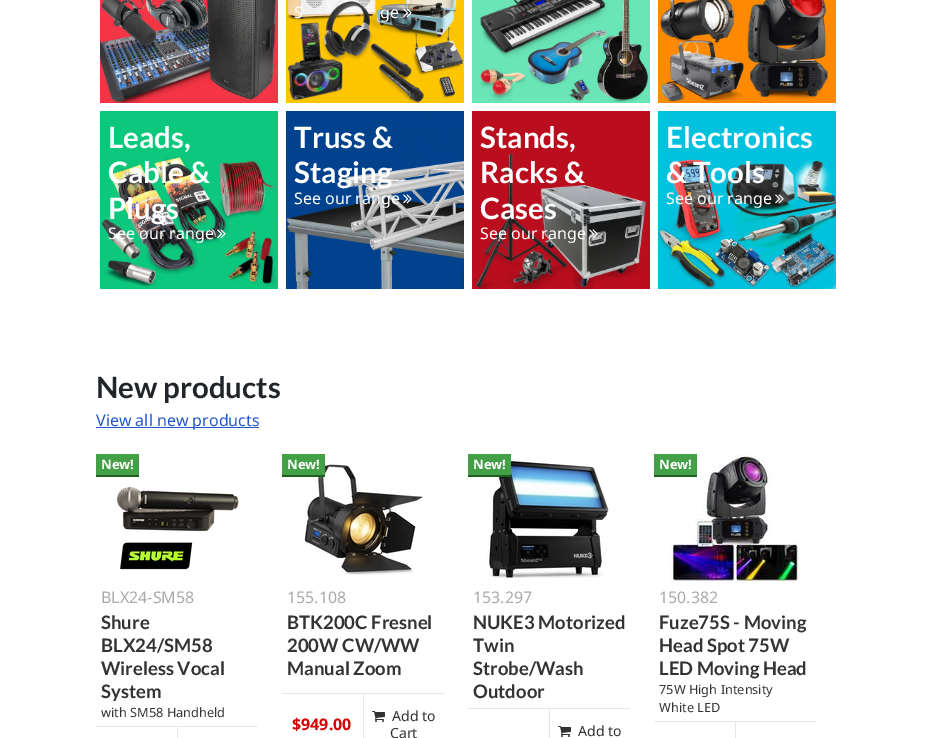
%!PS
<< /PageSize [935 738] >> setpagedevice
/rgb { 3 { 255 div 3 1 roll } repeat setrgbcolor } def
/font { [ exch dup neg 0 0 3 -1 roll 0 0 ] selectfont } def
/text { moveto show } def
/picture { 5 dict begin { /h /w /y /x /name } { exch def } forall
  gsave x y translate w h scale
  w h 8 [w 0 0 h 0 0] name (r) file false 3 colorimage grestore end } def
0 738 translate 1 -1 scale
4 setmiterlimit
255 255 255 rgb
0 0 935 738 rectfill
(img_01.rgb) 100 0 178 103 picture
(img_02.rgb) 286 0 178 103 picture
(img_03.rgb) 403 8 9 10 picture
(img_04.rgb) 472 0 178 103 picture
(img_05.rgb) 658 0 178 103 picture
(img_06.rgb) 100 111 178 178 picture
(img_07.rgb) 217 229 9 10 picture
(img_08.rgb) 286 111 178 178 picture
(img_09.rgb) 403 194 9 10 picture
(img_10.rgb) 472 111 178 178 picture
(img_11.rgb) 589 229 9 10 picture
(img_12.rgb) 658 111 178 178 picture
(img_13.rgb) 775 194 9 10 picture
36 87 204 rgb
96 427 163 1 rectfill
67 160 71 rgb
96 454 43 21 rectfill
27 94 32 rgb
96 475 43 2 rectfill
(img_14.rgb) 116 486 123 84 picture
229 231 235 rgb
96 726 162 1 rectfill
177 727 1 11 rectfill
(img_15.rgb) 304 464 119 111 picture
67 160 71 rgb
282 454 43 21 rectfill
27 94 32 rgb
282 475 43 2 rectfill
229 231 235 rgb
282 693 162 1 rectfill
363 694 1 44 rectfill
(img_16.rgb) 372 711 13 11 picture
(img_17.rgb) 487 458 122 120 picture
67 160 71 rgb
468 454 43 21 rectfill
27 94 32 rgb
468 475 43 2 rectfill
229 231 235 rgb
468 708 162 1 rectfill
549 709 1 29 rectfill
(img_16.rgb) 558 726 13 11 picture
(img_18.rgb) 670 454 129 129 picture
67 160 71 rgb
654 454 43 21 rectfill
27 94 32 rgb
654 475 43 2 rectfill
229 231 235 rgb
654 721 162 1 rectfill
735 722 1 16 rectfill
/NotoSans-Regular 16 font
255 255 255 rgb
(S) 294 18 text
(ge) 380 18 text
/Lato-Bold 29.5 font
(Leads,) 108 148 text
(Cable &) 108 183 text
(Plugs) 108 219 text
/NotoSans-Regular 16 font
(See our range) 108 239 text
/Lato-Bold 29.5 font
(Truss &) 294 148 text
(Staging) 294 183 text
/NotoSans-Regular 16 font
(See our range) 294 204 text
/Lato-Bold 29.5 font
(Stands,) 480 148 text
(Racks &) 480 183 text
(Cases) 480 219 text
/NotoSans-Regular 16 font
(See our range) 480 239 text
/Lato-Bold 29.5 font
(Electronics) 666 148 text
(& Tools) 666 183 text
/NotoSans-Regular 16 font
(See our range) 666 204 text
/Lato-Bold 29.5 font
33 37 41 rgb
(New products) 96 398 text
/NotoSans-Regular 16 font
36 87 204 rgb
(View all new products) 96 426 text
/NotoSans-Bold 13 font
255 255 255 rgb
(New!) 101 469 text
/NotoSans-Regular 16 font
170 170 170 rgb
(BLX24-SM58) 101 603 text
/Lato-Bold 18.5 font
51 51 51 rgb
(Shure) 101 629 text
(BLX24/SM58) 101 652 text
(Wireless Vocal) 101 675 text
(System) 101 698 text
/NotoSans-Regular 12.75 font
(with SM58 Handheld) 101 717 text
/NotoSans-Bold 13 font
255 255 255 rgb
(New!) 287 469 text
/NotoSans-Regular 16 font
170 170 170 rgb
(155.108) 287 603 text
/Lato-Bold 18.5 font
51 51 51 rgb
(BTK200C Fresnel) 287 629 text
(200W CW/WW) 287 652 text
(Manual Zoom) 287 675 text
/NotoSans-Bold 16 font
213 0 0 rgb
($949.00) 292 730 text
/NotoSans-Regular 14 font
51 51 51 rgb
(Add to) 392 721 text
(Cart) 390 738 text
/NotoSans-Bold 13 font
255 255 255 rgb
(New!) 473 469 text
/NotoSans-Regular 16 font
170 170 170 rgb
(153.297) 473 603 text
/Lato-Bold 18.5 font
51 51 51 rgb
(NUKE3 Motorized) 473 629 text
(Twin) 473 652 text
(Strobe/Wash) 473 675 text
(Outdoor) 473 698 text
/NotoSans-Regular 14 font
(Add to) 578 736 text
/NotoSans-Bold 13 font
255 255 255 rgb
(New!) 659 469 text
/NotoSans-Regular 16 font
170 170 170 rgb
(150.382) 659 603 text
/Lato-Bold 18.5 font
51 51 51 rgb
(Fuze75S - Moving) 659 629 text
(Head Spot 75W) 659 652 text
(LED Moving Head) 659 675 text
/NotoSans-Regular 12.75 font
(75W High Intensity) 659 694 text
(White LED) 659 712 text
showpage
